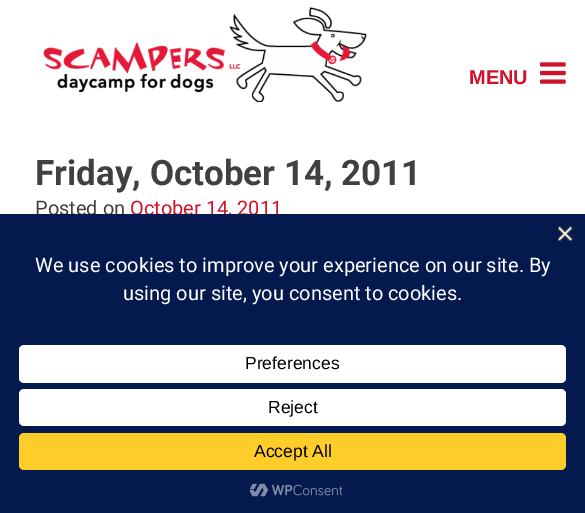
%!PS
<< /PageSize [585 513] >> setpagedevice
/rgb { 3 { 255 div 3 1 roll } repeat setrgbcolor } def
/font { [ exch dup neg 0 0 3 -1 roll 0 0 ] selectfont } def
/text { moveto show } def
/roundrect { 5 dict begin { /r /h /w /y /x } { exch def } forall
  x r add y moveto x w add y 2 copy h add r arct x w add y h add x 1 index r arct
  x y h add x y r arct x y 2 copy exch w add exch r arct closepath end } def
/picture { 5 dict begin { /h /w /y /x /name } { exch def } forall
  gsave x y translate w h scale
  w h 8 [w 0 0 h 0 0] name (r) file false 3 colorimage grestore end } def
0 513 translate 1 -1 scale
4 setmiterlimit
255 255 255 rgb
0 0 585 513 rectfill
(img_01.rgb) 43 7 324 95 picture
(img_02.rgb) 540 62 26 22 picture
/LiberationSans-Bold 20 font
208 17 43 rgb
(MENU) 469 84 text
/Roboto-Bold 35 font
64 64 64 rgb
(Friday, October 14, 2011) 35 185 text
/Roboto-Regular 20 font
(Posted on) 35 215 text
208 17 37 rgb
(October 14, 2011) 130 215 text
4 25 78 rgb
0 214 585 299 rectfill
(img_03.rgb) 558 226 15 15 picture
255 255 255 rgb
(We use cookies to improve your experience on our site. By) 35 272 text
(using our site, you consent to cookies.) 123 300 text
19 345 547 38 5 roundrect fill
/LiberationSans-Regular 17.5 font
0 0 0 rgb
(Preferences) 245 369 text
255 255 255 rgb
19 389 547 37 5 roundrect fill
0 0 0 rgb
(Reject) 268 413 text
255 205 42 rgb
19 433 547 37 5 roundrect fill
0 0 0 rgb
(Accept All) 254 457 text
(img_04.rgb) 249 483 94 14 picture
showpage
